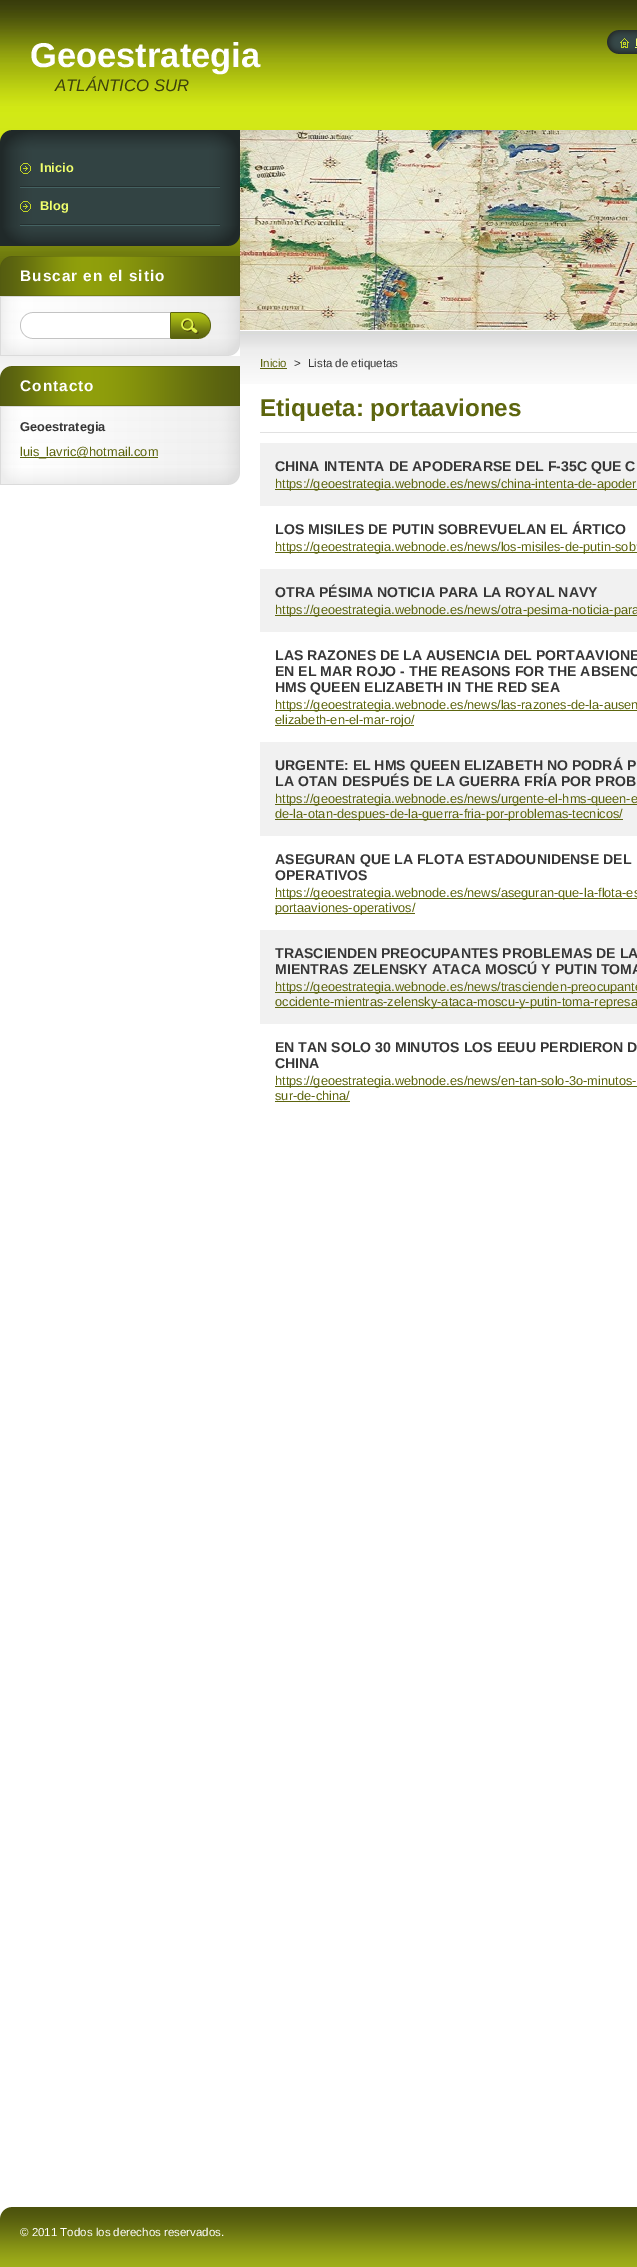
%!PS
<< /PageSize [637 2267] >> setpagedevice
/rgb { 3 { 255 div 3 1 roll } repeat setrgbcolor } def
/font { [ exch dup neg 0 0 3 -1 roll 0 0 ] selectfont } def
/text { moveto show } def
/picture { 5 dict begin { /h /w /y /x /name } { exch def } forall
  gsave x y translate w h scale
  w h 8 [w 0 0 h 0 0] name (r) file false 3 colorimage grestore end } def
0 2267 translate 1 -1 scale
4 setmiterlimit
255 255 255 rgb
0 0 637 2267 rectfill
(img_01.rgb) 0 0 637 384 picture
(img_02.rgb) 607 30 13 24 picture
(img_03.rgb) 620 30 17 24 picture
(img_04.rgb) 620 38 9 10 picture
240 255 109 rgb
635 47 2 1 rectfill
(img_05.rgb) 0 130 240 20 picture
(img_06.rgb) 0 226 240 20 picture
(img_07.rgb) 0 150 240 76 picture
(img_08.rgb) 20 186 200 2 picture
(img_09.rgb) 20 163 11 11 picture
(img_08.rgb) 20 224 200 2 picture
(img_09.rgb) 20 201 11 11 picture
(img_10.rgb) 0 339 240 17 picture
(img_11.rgb) 0 256 240 40 picture
(img_12.rgb) 0 297 240 42 picture
219 219 219 rgb
0 296 240 1 rectfill
(img_13.rgb) 20 312 150 27 picture
(img_14.rgb) 170 312 41 27 picture
(img_10.rgb) 0 468 240 17 picture
(img_15.rgb) 0 366 240 40 picture
(img_16.rgb) 0 407 240 61 picture
0 406 240 1 rectfill
93 101 14 rgb
20 457 138 1 rectfill
(img_17.rgb) 240 130 397 200 picture
260 368 27 1 rectfill
225 225 225 rgb
260 432 377 1 rectfill
241 241 241 rgb
260 443 377 63 rectfill
93 101 14 rgb
275 489 362 1 rectfill
275 552 362 1 rectfill
241 241 241 rgb
260 569 377 63 rectfill
93 101 14 rgb
275 615 362 1 rectfill
275 710 362 1 rectfill
275 725 139 1 rectfill
241 241 241 rgb
260 742 377 94 rectfill
93 101 14 rgb
275 804 362 1 rectfill
275 819 348 1 rectfill
275 898 362 1 rectfill
275 913 140 1 rectfill
241 241 241 rgb
260 930 377 94 rectfill
93 101 14 rgb
275 992 362 1 rectfill
275 1007 362 1 rectfill
275 1086 362 1 rectfill
275 1101 75 1 rectfill
(img_18.rgb) 0 2207 637 60 picture
/LiberationSans-Bold 34.5 font
255 255 255 rgb
(Geoestrategia) 30 67 text
/LiberationSans-Italic 16.75 font
60 65 12 rgb
(ATLÁNTICO SUR) 55 91 text
/LiberationSans-Regular 11 font
240 255 109 rgb
(I) 635 46 text
/LiberationSans-Bold 12.8 font
(Inicio) 40 172 text
(Blog) 40 210 text
/LiberationSans-Bold 15.4 font
255 255 255 rgb
20 281 moveto 1 0 (Buscar en el sitio) ashow
20 391 moveto 1 0 (Contacto) ashow
/LiberationSans-Bold 12.8 font
54 54 54 rgb
(Geoestrategia) 20 431 text
/LiberationSans-Regular 12.8 font
93 101 14 rgb
(luis_lavric@hotmail.com) 20 456 text
/LiberationSans-Regular 11.5 font
(Inicio) 260 367 text
54 54 54 rgb
(>) 294 367 text
(Lista de etiquetas) 308 367 text
/LiberationSans-Bold 24.25 font
93 101 14 rgb
(Etiqueta: portaaviones) 260 416 text
/LiberationSans-Bold 14.1 font
54 54 54 rgb
(CHINA INTENTA DE APODERARSE DEL F-35C QUE C) 275 471 text
/LiberationSans-Regular 12.8 font
93 101 14 rgb
(https://geoestrategia.webnode.es/news/china-intenta-de-apoder) 275 488 text
/LiberationSans-Bold 14.1 font
54 54 54 rgb
(LOS MISILES DE PUTIN SOBREVUELAN EL ÁRTICO) 275 534 text
/LiberationSans-Regular 12.8 font
93 101 14 rgb
(https://geoestrategia.webnode.es/news/los-misiles-de-putin-sobr) 275 551 text
/LiberationSans-Bold 14.1 font
54 54 54 rgb
(OTRA PÉSIMA NOTICIA PARA LA ROYAL NAVY) 275 597 text
/LiberationSans-Regular 12.8 font
93 101 14 rgb
(https://geoestrategia.webnode.es/news/otra-pesima-noticia-para) 275 614 text
/LiberationSans-Bold 14.1 font
54 54 54 rgb
(LAS RAZONES DE LA AUSENCIA DEL PORTAAVIONE) 275 660 text
(EN EL MAR ROJO - THE REASONS FOR THE ABSENC) 275 676 text
(HMS QUEEN ELIZABETH IN THE RED SEA) 275 692 text
/LiberationSans-Regular 12.8 font
93 101 14 rgb
(https://geoestrategia.webnode.es/news/las-razones-de-la-ausen) 275 709 text
(elizabeth-en-el-mar-rojo/) 275 724 text
/LiberationSans-Bold 14.1 font
54 54 54 rgb
(URGENTE: EL HMS QUEEN ELIZABETH NO PODRÁ P) 275 770 text
(LA OTAN DESPUÉS DE LA GUERRA FRÍA POR PROB) 275 786 text
/LiberationSans-Regular 12.8 font
93 101 14 rgb
(https://geoestrategia.webnode.es/news/urgente-el-hms-queen-e) 275 803 text
(de-la-otan-despues-de-la-guerra-fria-por-problemas-tecnicos/) 275 818 text
/LiberationSans-Bold 14.1 font
54 54 54 rgb
(ASEGURAN QUE LA FLOTA ESTADOUNIDENSE DEL) 275 864 text
(OPERATIVOS) 275 880 text
/LiberationSans-Regular 12.8 font
93 101 14 rgb
(https://geoestrategia.webnode.es/news/aseguran-que-la-flota-es) 275 897 text
(portaaviones-operativos/) 275 912 text
/LiberationSans-Bold 14.1 font
54 54 54 rgb
(TRASCIENDEN PREOCUPANTES PROBLEMAS DE LA) 275 958 text
(MIENTRAS ZELENSKY ATACA MOSCÚ Y PUTIN TOMA) 275 974 text
/LiberationSans-Regular 12.8 font
93 101 14 rgb
(https://geoestrategia.webnode.es/news/trascienden-preocupante) 275 991 text
(occidente-mientras-zelensky-ataca-moscu-y-putin-toma-represa) 275 1006 text
/LiberationSans-Bold 14.1 font
54 54 54 rgb
(EN TAN SOLO 30 MINUTOS LOS EEUU PERDIERON D) 275 1052 text
(CHINA) 275 1068 text
/LiberationSans-Regular 12.8 font
93 101 14 rgb
(https://geoestrategia.webnode.es/news/en-tan-solo-3o-minutos-) 275 1085 text
(sur-de-china/) 275 1100 text
/LiberationSans-Regular 11.5 font
255 255 255 rgb
(© 2011 Todos los derechos reservados.) 20 2236 text
showpage
